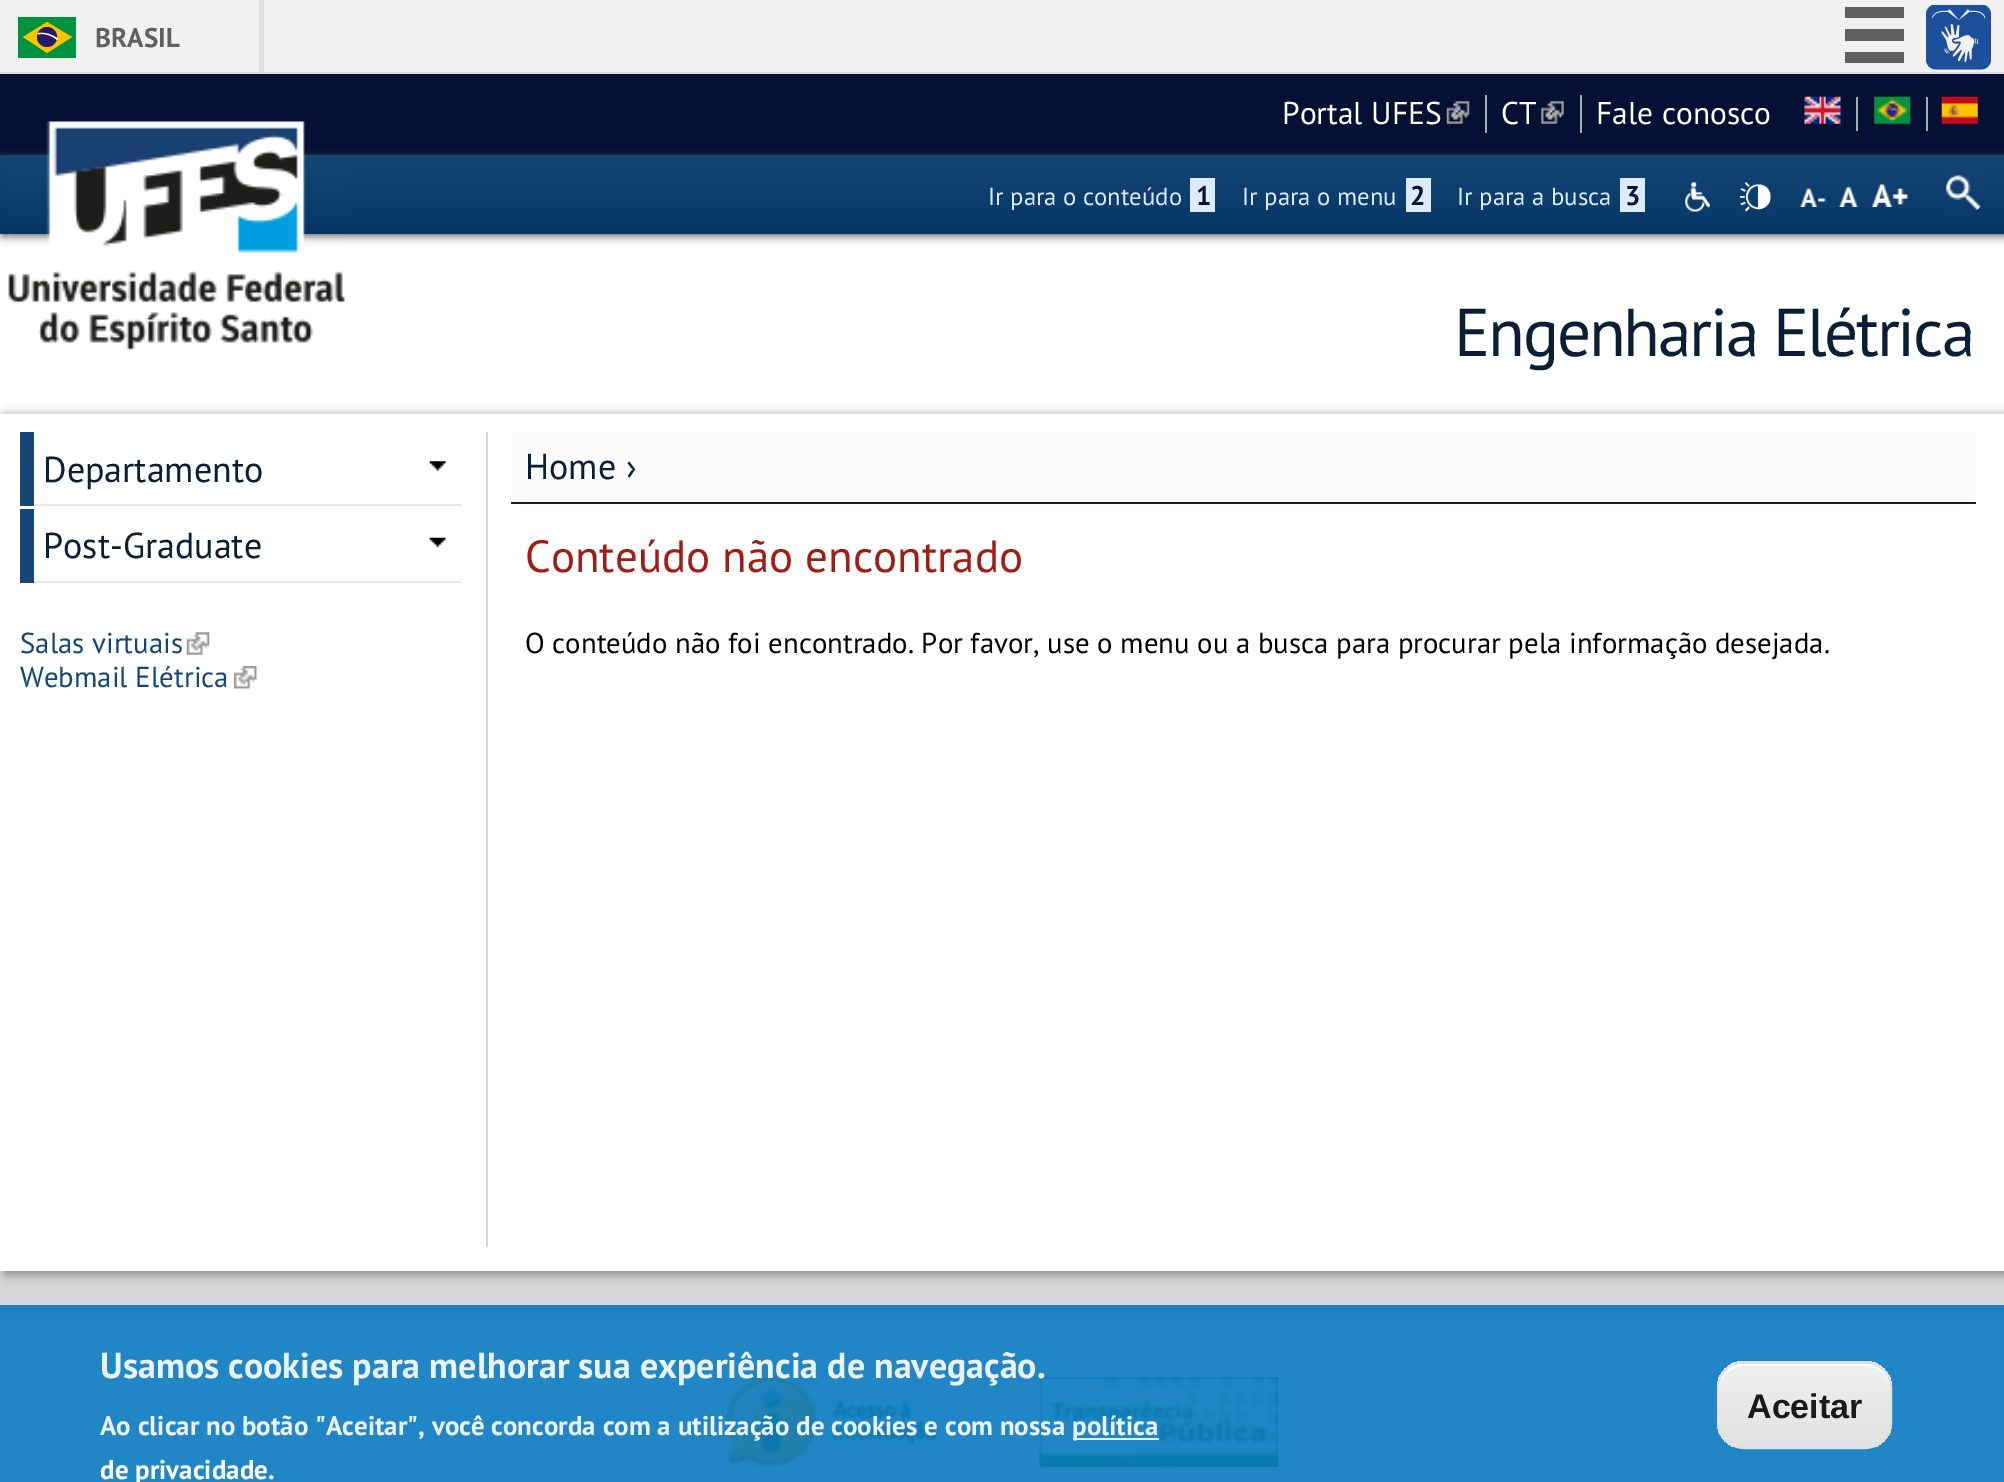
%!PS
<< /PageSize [2004 1482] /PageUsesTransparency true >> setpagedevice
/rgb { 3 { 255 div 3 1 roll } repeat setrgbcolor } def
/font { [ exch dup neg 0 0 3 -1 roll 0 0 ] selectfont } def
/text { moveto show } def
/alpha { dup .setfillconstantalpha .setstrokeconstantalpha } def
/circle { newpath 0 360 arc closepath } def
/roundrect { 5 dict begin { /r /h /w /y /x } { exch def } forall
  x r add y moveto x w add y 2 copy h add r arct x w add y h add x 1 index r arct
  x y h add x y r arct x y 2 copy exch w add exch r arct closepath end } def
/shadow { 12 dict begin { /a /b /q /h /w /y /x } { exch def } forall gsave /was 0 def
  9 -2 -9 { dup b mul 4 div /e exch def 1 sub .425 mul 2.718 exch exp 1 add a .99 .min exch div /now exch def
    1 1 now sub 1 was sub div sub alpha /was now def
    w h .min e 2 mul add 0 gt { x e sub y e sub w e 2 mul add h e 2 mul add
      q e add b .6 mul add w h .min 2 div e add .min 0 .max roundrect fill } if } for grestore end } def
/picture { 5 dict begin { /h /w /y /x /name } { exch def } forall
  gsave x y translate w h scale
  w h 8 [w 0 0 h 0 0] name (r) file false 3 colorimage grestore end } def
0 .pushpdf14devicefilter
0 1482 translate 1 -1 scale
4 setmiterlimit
255 255 255 rgb
0 0 2004 1482 rectfill
32 134 197 rgb
0 1319 2004 163 rectfill
241 241 241 rgb
0 0 2004 72 rectfill
223 223 223 rgb
0 72 2004 2 rectfill
259 0 5 72 rectfill
0 146 63 rgb
18 17 58 41 rectfill
248 195 0 rgb
47 22 moveto -24 15 rlineto 24 16 rlineto 25 -16 rlineto closepath fill
40 22 111 rgb
47 37 10 circle fill
255 255 255 rgb
41 34 moveto 6 0 11.5 2 16 6 rcurveto 0.5 -1.5 rlineto -5.5 -4.5 -12.5 -6.5 -19.5 -5.5 rcurveto -0.5 1.5 rlineto closepath fill
96 96 96 rgb
1845 7 59 11 rectfill
1845 29 59 12 rectfill
1845 52 59 11 rectfill
(img_01.rgb) 1926 5 65 65 picture
5 16 52 rgb
0 74 2004 81 rectfill
164 174 185 rgb
1485 95 2 38 rectfill
(img_02.rgb) 1446 101 24 23 picture
1580 95 2 38 rectfill
(img_03.rgb) 1541 101 23 23 picture
1856 97 2 34 rectfill
(img_04.rgb) 1804 96 37 28 picture
1926 97 2 34 rectfill
(img_05.rgb) 1874 96 37 28 picture
(img_06.rgb) 1941 96 37 28 picture
89 89 89 rgb
2 158 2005 78 0 4.5 1 shadow
gsave 0 155 moveto 2004 0 rlineto 0 79 rlineto -2004 0 rlineto closepath clip newpath
<< /ShadingType 2 /ColorSpace /DeviceRGB /Coords [1002 155 1002 234] /Extend [true true] /Function << /FunctionType 2 /Domain [0 1] /C0 [0.082 0.275 0.459] /C1 [0.02 0.212 0.4] /N 1 >> >> shfill grestore
(img_07.rgb) 8 121 337 229 picture
220 236 255 rgb
1190 178 25 34 rectfill
1406 178 25 34 rectfill
1620 178 25 34 rectfill
(img_08.rgb) 1685 182 25 30 picture
(img_09.rgb) 1740 182 31 30 picture
(img_10.rgb) 1800 188 26 19 picture
(img_11.rgb) 1838 187 21 20 picture
(img_12.rgb) 1871 184 37 23 picture
(img_13.rgb) 1946 175 35 35 picture
215 215 215 rgb
0 1271 2004 34 rectfill
128 128 128 rgb
5 416 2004 858 0 5.5 1 shadow
255 255 255 rgb
0 414 2004 857 rectfill
21 70 118 rgb
20 432 14 74 rectfill
(img_14.rgb) 429 461 17 10 picture
230 230 230 rgb
34 504 427 2 rectfill
21 70 118 rgb
20 509 14 74 rectfill
(img_15.rgb) 429 537 17 11 picture
230 230 230 rgb
34 581 427 2 rectfill
(img_16.rgb) 186 632 24 23 picture
(img_17.rgb) 234 666 23 23 picture
214 214 214 rgb
486 432 2 815 rectfill
251 251 251 rgb
511 432 1465 70 rectfill
10 31 51 rgb
511 502 1465 2 rectfill
28 130 193 rgb
0 1305 2004 14 rectfill
(img_19.rgb) 1039 1377 239 90 picture
0.9 alpha
255 255 255 rgb
1073 1438 86 2 rectfill
gsave
1717 1361 175 88 27 roundrect clip newpath
1 alpha
gsave 1731 1361 moveto 147 0 rlineto 0 3 rlineto -147 0 rlineto closepath clip newpath
<< /ShadingType 2 /ColorSpace /DeviceRGB /Coords [1805 1280 1805 1364] /Extend [true true] /Function << /FunctionType 3 /Domain [0 1] /Functions [<< /FunctionType 2 /Domain [0 1] /C0 [0.937 0.937 0.937] /C1 [0.937 0.937 0.937] /N 1 >> << /FunctionType 2 /Domain [0 1] /C0 [0.937 0.937 0.937] /C1 [0.886 0.886 0.886] /N 1 >>] /Bounds [0.05] /Encode [0 1 0 1] >> >> shfill grestore
gsave 1717 1364 moveto 175 0 rlineto 0 83 rlineto -175 0 rlineto closepath clip newpath
<< /ShadingType 2 /ColorSpace /DeviceRGB /Coords [1805 1364 1805 1447] /Extend [true true] /Function << /FunctionType 3 /Domain [0 1] /Functions [<< /FunctionType 2 /Domain [0 1] /C0 [0.937 0.937 0.937] /C1 [0.937 0.937 0.937] /N 1 >> << /FunctionType 2 /Domain [0 1] /C0 [0.937 0.937 0.937] /C1 [0.886 0.886 0.886] /N 1 >>] /Bounds [0.05] /Encode [0 1 0 1] >> >> shfill grestore
grestore
1 alpha
1744 1366 moveto 121 0 rlineto 14 0 25 11 25 24 rcurveto 0 -1 rlineto 0 -14 -11 -25 -25 -25 rcurveto -121 0 rlineto -14 0 -25 11 -25 25 rcurveto 0 1 rlineto 0 -13 11 -24 25 -24 rcurveto closepath fill
224 224 224 rgb
2 setlinewidth
1718 1362 173 86 26 roundrect stroke
(img_18.rgb) 726 1377 210 90 picture
/PTSans-Bold 27 font
96 96 96 rgb
(BRASIL) 95 47 text
/PTSans-Regular 31.5 font
255 255 255 rgb
(Portal UFES) 1282 124 text
(CT) 1501 124 text
(Fale conosco) 1596 124 text
/PTSans-Regular 24.75 font
220 236 255 rgb
(Ir para o conteúdo) 988 205 text
/PTSans-Bold 27 font
5 16 52 rgb
(1) 1196 205 text
/PTSans-Regular 24.75 font
220 236 255 rgb
(Ir para o menu) 1242 205 text
/PTSans-Bold 27 font
5 16 52 rgb
(2) 1410 205 text
/PTSans-Regular 24.75 font
220 236 255 rgb
(Ir para a busca) 1457 205 text
/PTSans-Bold 27 font
5 16 52 rgb
(3) 1625 205 text
/PTSans-Regular 67.5 font
10 31 51 rgb
1454 356 moveto -2.25 0 (Engenharia Elétrica) ashow
/PTSans-Regular 36 font
(Departamento) 43 482 text
(Post-Graduate) 43 558 text
/PTSans-Regular 28.8 font
21 70 120 rgb
(Salas virtuais) 20 653 text
(Webmail Elétrica) 20 687 text
/PTSans-Regular 36 font
10 31 51 rgb
(Home ›) 525 479 text
/PTSans-Regular 45 font
161 29 20 rgb
(Conteúdo não encontrado) 525 572 text
/PTSans-Regular 28.8 font
0 0 0 rgb
(O conteúdo não foi encontrado. Por favor, use o menu ou a busca para procurar pela informação desejada.) 525 653 text
/PTSans-Bold 36 font
233 243 249 rgb
(Usamos cookies para melhorar sua experiência de navegação.) 100 1378 text
/PTSans-Bold 27 font
(Ao clicar no botão "Aceitar", você concorda com a utilização de cookies e com nossa) 100 1435 text
(política) 1072 1435 text
255 255 255 rgb
(de privacidade.) 100 1479 text
/LiberationSans-Bold 34 font
26 26 26 rgb
(Aceitar) 1747 1418 text
.poppdf14devicefilter showpage
